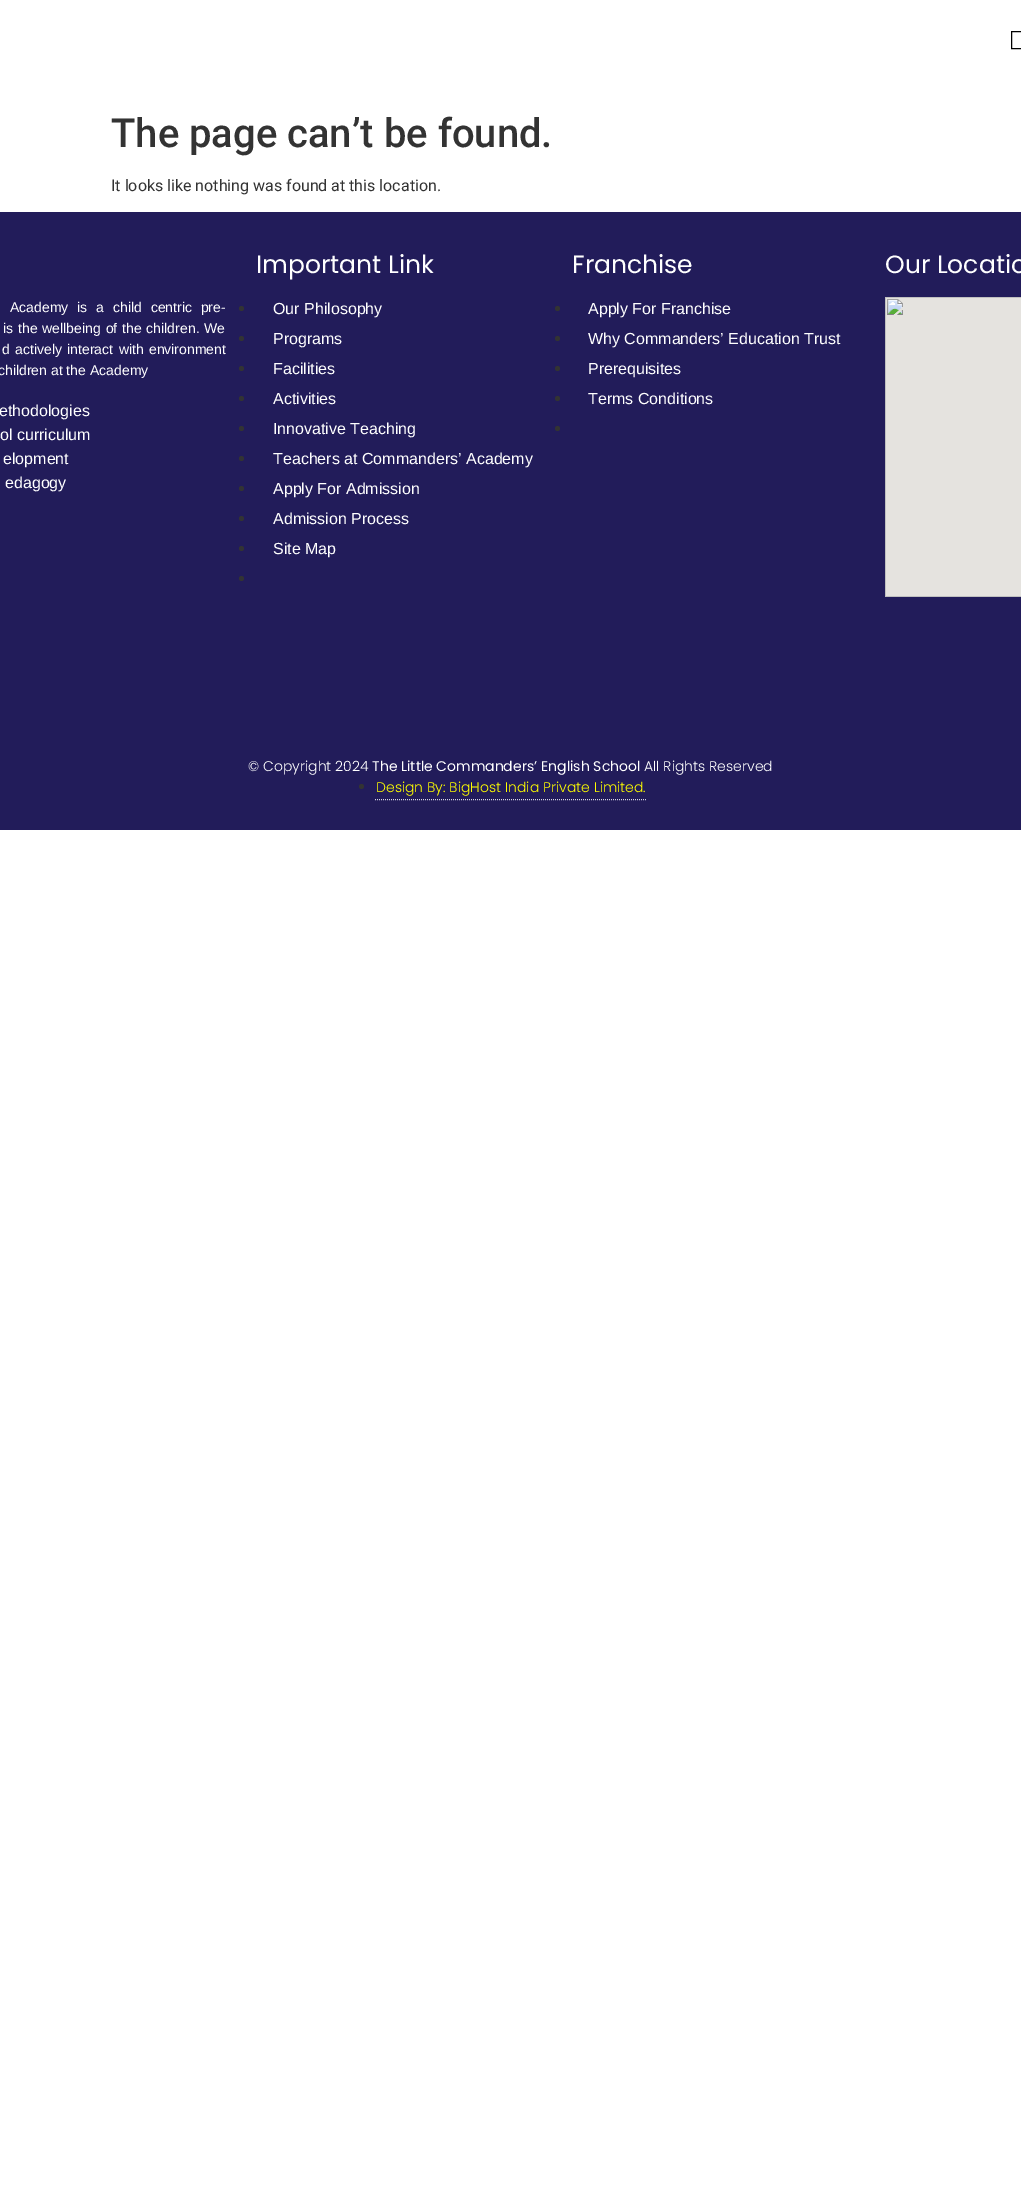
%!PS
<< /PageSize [1021 2206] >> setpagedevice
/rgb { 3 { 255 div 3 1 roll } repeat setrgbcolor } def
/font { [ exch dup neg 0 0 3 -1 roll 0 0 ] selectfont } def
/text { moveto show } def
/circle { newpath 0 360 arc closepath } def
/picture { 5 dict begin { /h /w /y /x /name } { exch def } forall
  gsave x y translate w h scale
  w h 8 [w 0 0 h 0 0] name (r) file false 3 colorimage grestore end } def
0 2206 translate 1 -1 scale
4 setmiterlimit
255 255 255 rgb
0 0 1021 2206 rectfill
0 0 0 rgb
1011.5 31.5 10 17 rectstroke
34 28 90 rgb
0 212 1021 618 rectfill
51 51 51 rgb
241.5 308.5 2.5 circle fill
241.5 338.5 2.5 circle fill
241.5 368.5 2.5 circle fill
241.5 398.5 2.5 circle fill
241.5 428.5 2.5 circle fill
241.5 458.5 2.5 circle fill
241.5 488.5 2.5 circle fill
241.5 518.5 2.5 circle fill
241.5 548.5 2.5 circle fill
241.5 578.5 2.5 circle fill
557.5 308.5 2.5 circle fill
557.5 338.5 2.5 circle fill
557.5 368.5 2.5 circle fill
557.5 398.5 2.5 circle fill
557.5 428.5 2.5 circle fill
(img_01.rgb) 885 297 136 300 picture
211 209 227 rgb
[1 1] 0 setdash
375 799.5 moveto 271 0 rlineto stroke
51 51 51 rgb
361.5 786.5 2.5 circle fill
/Roboto-Medium 40 font
(The page can’t be found.) 111 147 text
/Roboto-Regular 16 font
(It looks like nothing was found at this location.) 111 191 text
/Poppins-Regular 25 font
255 255 255 rgb
(Important Link) 256 273 text
/LiberationSans-Regular 16 font
(Our Philosophy) 273 314 text
(Programs) 273 344 text
(Facilities) 273 374 text
(Activities) 273 404 text
(Innovative Teaching) 273 434 text
(Teachers at Commanders’ Academy) 273 464 text
(Apply For Admission) 273 494 text
(Admission Process) 273 524 text
(Site Map) 273 554 text
/Poppins-Regular 25 font
(Franchise) 572 273 text
/LiberationSans-Regular 16 font
(Apply For Franchise) 588 314 text
(Why Commanders’ Education Trust) 588 344 text
(Prerequisites) 588 374 text
(Terms Conditions) 588 404 text
/Poppins-Regular 25 font
(Our Locatio) 885 273 text
/LiberationSans-Regular 14 font
10 312 moveto 5 0 32 (Academy is a child centric pre-) widthshow
3 333 moveto 1 0 32 (is the wellbeing of the children. We) widthshow
2 354 moveto 1.5 0 32 (d actively interact with environment) widthshow
(children at the Academy) -2 375 text
/LiberationSans-Regular 16 font
(ethodologies) -1 416 text
(ol curriculum) 0 440 text
(elopment) 3 464 text
(edagogy) 5 488 text
/Poppins-Light 14 font
(© Copyright 2024) 248 771 text
/Poppins-Regular 14 font
(The Little Commanders’ English School) 372 771 text
/Poppins-Light 14 font
(All Rights Reserved) 644 771 text
255 255 0 rgb
(Design By: BigHost India Private Limited.) 376 792 text
showpage
